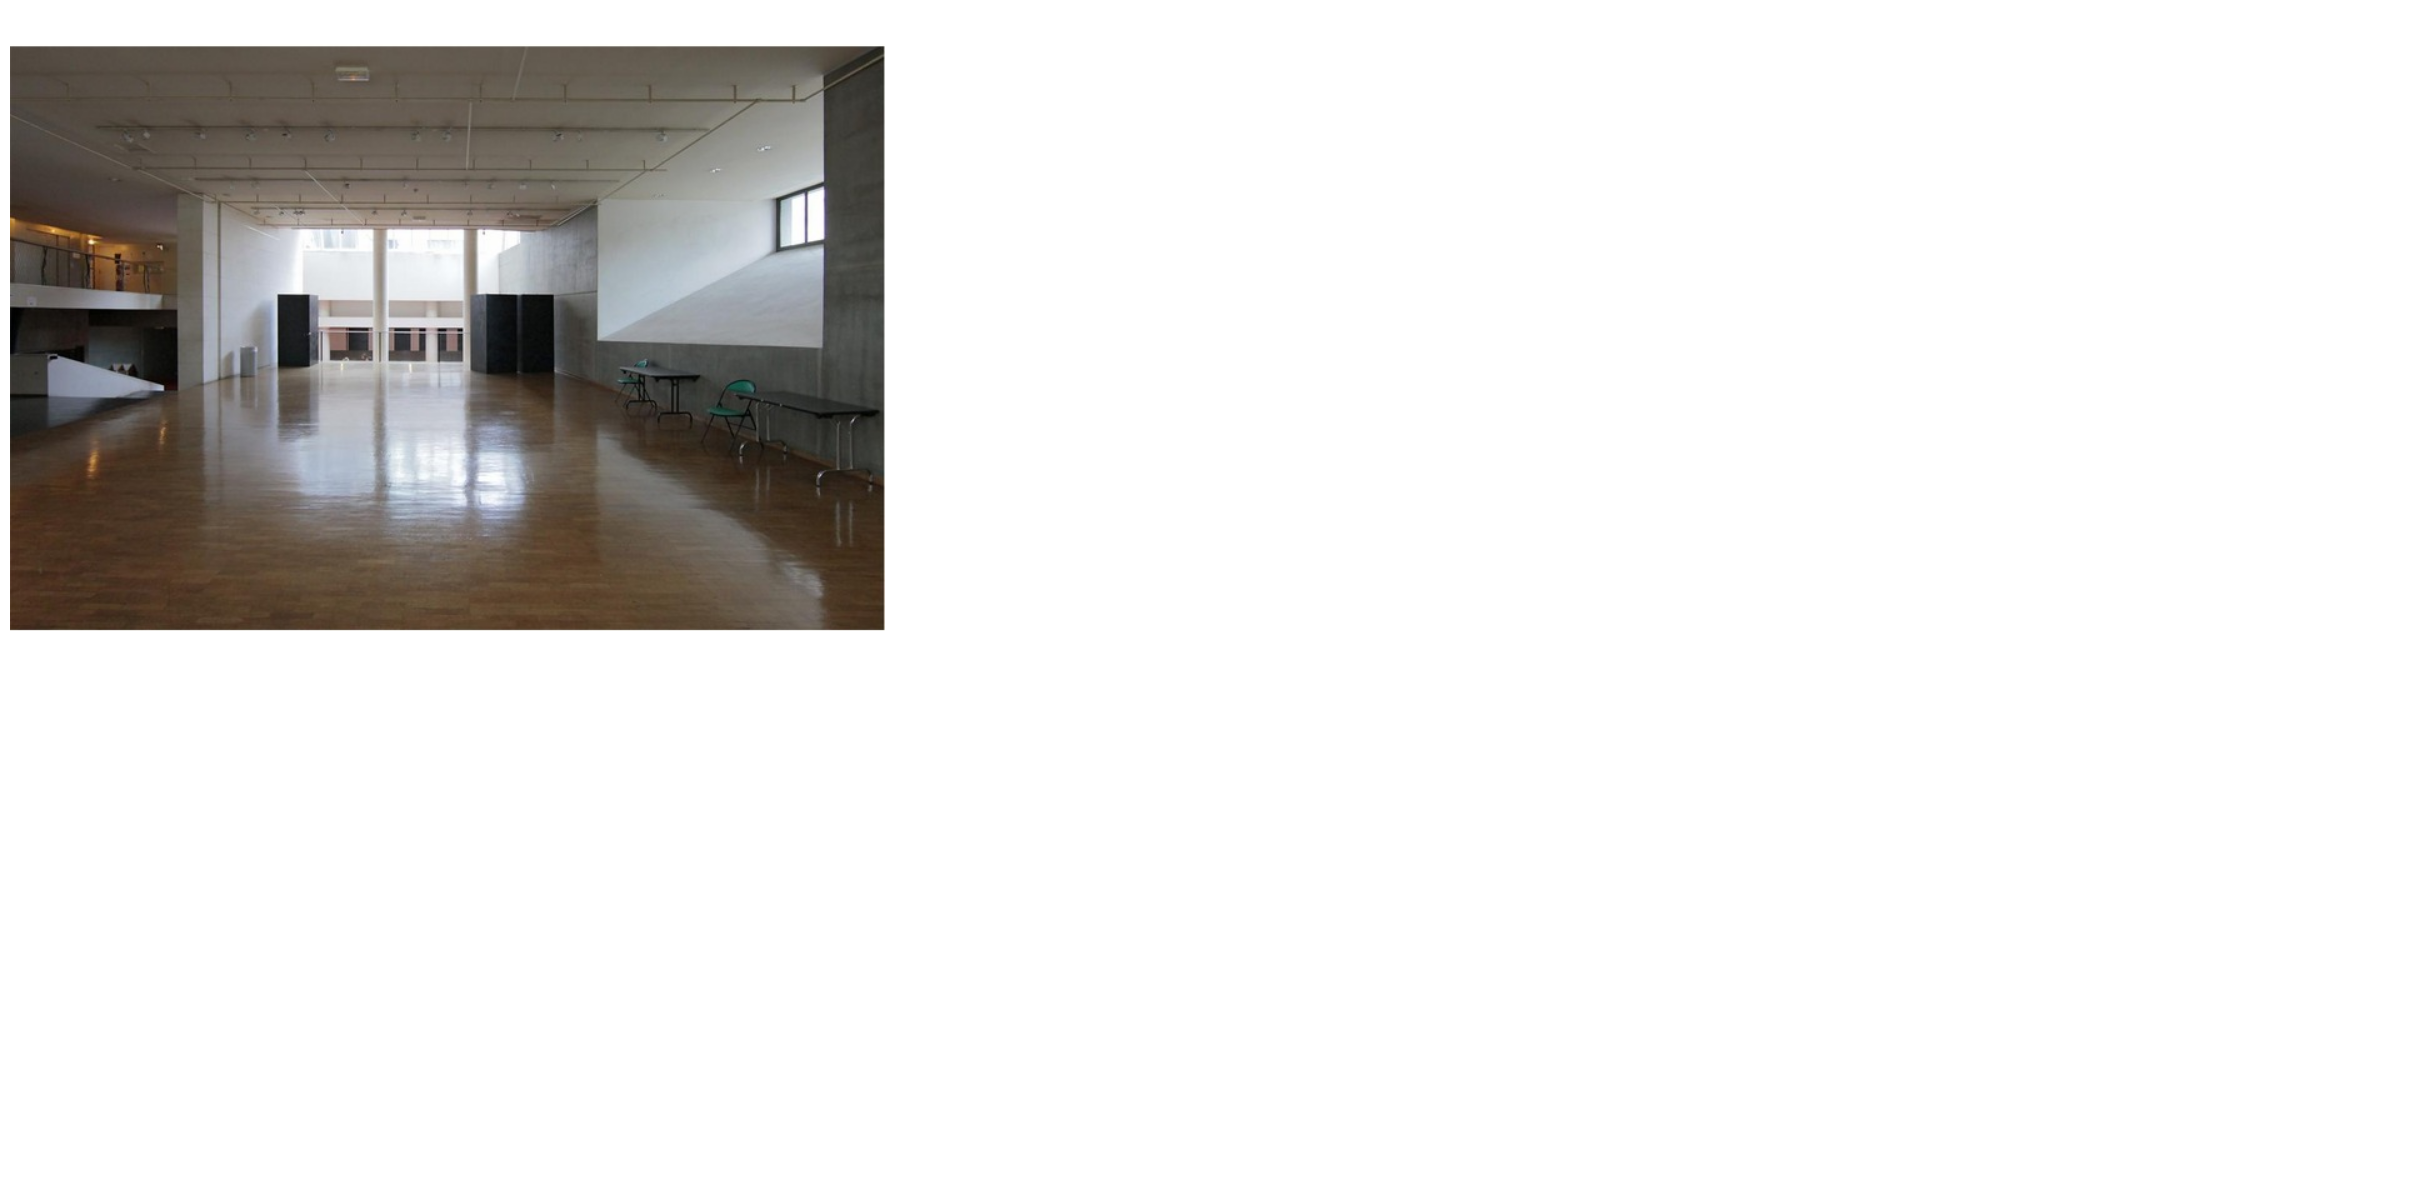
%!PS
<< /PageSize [2412 1179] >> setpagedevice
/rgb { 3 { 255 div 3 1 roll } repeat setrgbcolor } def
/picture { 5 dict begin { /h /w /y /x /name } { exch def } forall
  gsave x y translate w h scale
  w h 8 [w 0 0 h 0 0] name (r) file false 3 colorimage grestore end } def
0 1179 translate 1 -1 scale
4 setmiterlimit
255 255 255 rgb
0 0 2412 1179 rectfill
(img_01.rgb) 10 44 875 587 picture
showpage
